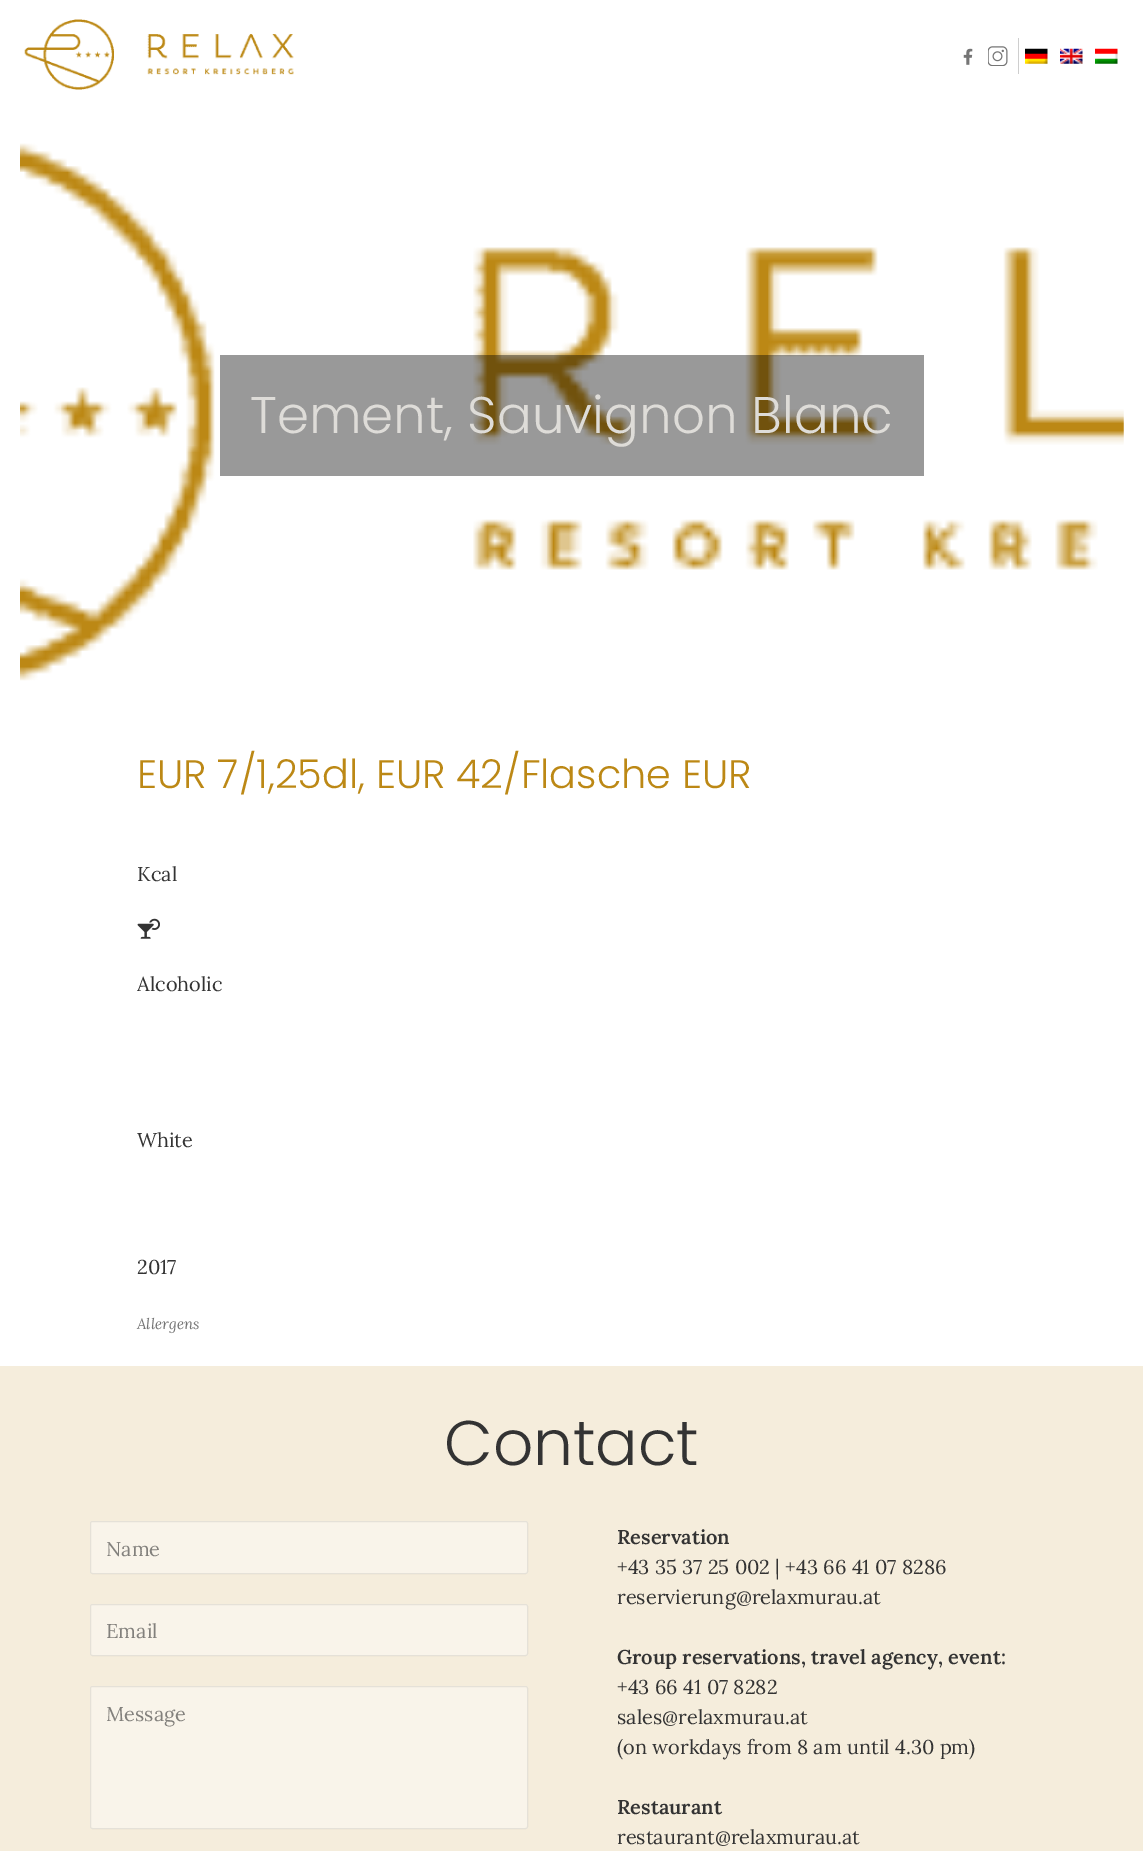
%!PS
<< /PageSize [1143 1851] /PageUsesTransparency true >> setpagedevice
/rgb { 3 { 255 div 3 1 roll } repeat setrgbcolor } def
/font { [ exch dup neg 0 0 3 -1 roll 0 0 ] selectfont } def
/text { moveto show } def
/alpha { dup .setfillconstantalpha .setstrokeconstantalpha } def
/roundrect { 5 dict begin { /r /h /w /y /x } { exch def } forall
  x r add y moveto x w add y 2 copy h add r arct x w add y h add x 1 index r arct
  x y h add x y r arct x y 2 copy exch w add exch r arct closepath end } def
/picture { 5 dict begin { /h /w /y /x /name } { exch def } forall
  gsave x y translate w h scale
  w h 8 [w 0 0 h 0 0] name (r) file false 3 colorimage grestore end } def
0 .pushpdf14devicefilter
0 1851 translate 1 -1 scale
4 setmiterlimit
255 255 255 rgb
0 0 1143 1851 rectfill
(img_01.rgb) 24 19 270 71 picture
(img_02.rgb) 963 48 10 17 picture
206 206 206 rgb
1018 38 1 36 rectfill
(img_03.rgb) 988 46 20 20 picture
(img_04.rgb) 1025 48 23 16 picture
(img_05.rgb) 1060 48 23 16 picture
(img_06.rgb) 1095 48 23 16 picture
(img_07.rgb) 20 143 1104 538 picture
0.4 alpha
0 0 0 rgb
220 355 704 121 rectfill
1 alpha
(img_08.rgb) 137 918 23 21 picture
245 237 220 rgb
0 1366 1143 485 rectfill
249 244 234 rgb
90 1521 438 53 2.5 roundrect fill
0.08 alpha
0 0 0 rgb
90.5 1521.5 437 52 2 roundrect stroke
1 alpha
249 244 234 rgb
90 1604 438 52 2.5 roundrect fill
0.08 alpha
0 0 0 rgb
90.5 1604.5 437 51 2 roundrect stroke
1 alpha
249 244 234 rgb
90 1686 438 143 2.5 roundrect fill
0.08 alpha
0 0 0 rgb
90.5 1686.5 437 142 2 roundrect stroke
/Poppins-Light 51.5 font
1 alpha
222 220 216 rgb
(Tement, Sauvignon Blanc) 250 433 text
/Poppins-Light 39.75 font
188 136 21 rgb
(EUR 7/1,25dl, EUR 42/Flasche EUR) 137 788 text
/Lora-Regular 20 font
51 51 51 rgb
(Kcal) 137 881 text
(Alcoholic) 137 991 text
(White) 137 1147 text
(2017) 137 1274 text
/Lora-Italic 15 font
117 117 117 rgb
(Allergens) 137 1329 text
/Poppins-Light 63 font
51 51 51 rgb
(Contact) 444 1465 text
/Lora-Regular 20 font
130 128 124 rgb
(Name) 106 1556 text
(Email) 106 1638 text
(Message) 106 1721 text
/Lora-SemiBold 20 font
51 51 51 rgb
(Reservation) 617 1544 text
/Lora-Regular 20 font
(+43 35 37 25 002 | +43 66 41 07 8286) 617 1574 text
(reservierung@relaxmurau.at) 617 1604 text
/Lora-SemiBold 20 font
(Group reservations, travel agency, event:) 617 1664 text
/Lora-Regular 20 font
(+43 66 41 07 8282) 617 1694 text
(sales@relaxmurau.at) 617 1724 text
(\(on workdays from 8 am until 4.30 pm\)) 617 1754 text
/Lora-SemiBold 20 font
(Restaurant) 617 1814 text
/Lora-Regular 20 font
(restaurant@relaxmurau.at) 617 1844 text
.poppdf14devicefilter showpage
